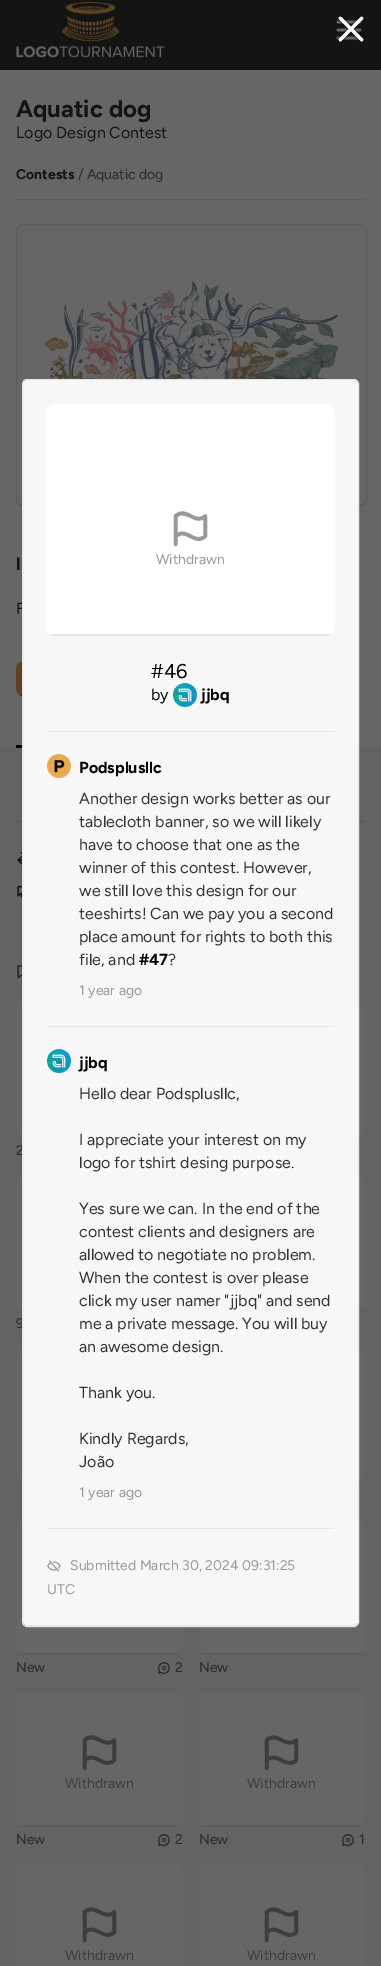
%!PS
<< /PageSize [381 1966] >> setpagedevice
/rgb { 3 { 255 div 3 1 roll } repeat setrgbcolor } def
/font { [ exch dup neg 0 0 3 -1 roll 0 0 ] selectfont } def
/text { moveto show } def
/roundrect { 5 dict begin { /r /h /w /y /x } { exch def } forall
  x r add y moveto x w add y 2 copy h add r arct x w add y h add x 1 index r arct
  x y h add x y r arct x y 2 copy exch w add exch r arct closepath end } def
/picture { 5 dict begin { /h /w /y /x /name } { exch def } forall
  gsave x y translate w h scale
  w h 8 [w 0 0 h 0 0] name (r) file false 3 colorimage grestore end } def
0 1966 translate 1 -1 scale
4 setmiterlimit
102 102 102 rgb
0 0 381 1966 rectfill
20 20 20 rgb
0 0 381 70 rectfill
(img_01.rgb) 16 2 149 56 picture
(img_02.rgb) 336 20 26 20 picture
92 92 92 rgb
16 199 349 1 rectfill
(img_03.rgb) 45 281 293 98 picture
16.5 224.5 350 282 7.5 roundrect stroke
20 504 343 2 rectfill
93 68 33 rgb
16 661 278 35 8 roundrect fill
81 55 20 rgb
20 694 2 2 rectfill
0 0 0 rgb
16.5 745.5 74 2 1 roundrect gsave fill grestore
stroke
99 99 99 rgb
0 748 381 1218 rectfill
92 92 92 rgb
16 820 349 3 rectfill
(img_04.rgb) 17 852 5 13 picture
(img_05.rgb) 17 885 5 13 picture
(img_06.rgb) 17 965 5 14 picture
102 102 102 rgb
199 1003 166 135 8 roundrect fill
92 92 92 rgb
359 1136 2 2 rectfill
102 102 102 rgb
16 1003 167 135 8 roundrect fill
92 92 92 rgb
20 1136 2 2 rectfill
102 102 102 rgb
199 1175 166 136 8 roundrect fill
92 92 92 rgb
359 1309 2 2 rectfill
102 102 102 rgb
16 1175 167 136 8 roundrect fill
92 92 92 rgb
20 1309 2 2 rectfill
102 102 102 rgb
16 1348 167 135 8 roundrect fill
92 92 92 rgb
20 1481 2 2 rectfill
102 102 102 rgb
199 1348 166 135 8 roundrect fill
92 92 92 rgb
359 1481 2 2 rectfill
102 102 102 rgb
16 1520 167 135 8 roundrect fill
92 92 92 rgb
20 1653 159 2 rectfill
(img_07.rgb) 158 1662 12 12 picture
102 102 102 rgb
199 1520 166 135 8 roundrect fill
92 92 92 rgb
203 1653 158 2 rectfill
102 102 102 rgb
16 1692 167 135 8 roundrect fill
92 92 92 rgb
20 1825 159 2 rectfill
(img_08.rgb) 82 1735 35 36 picture
(img_07.rgb) 158 1834 12 12 picture
102 102 102 rgb
199 1692 166 135 8 roundrect fill
92 92 92 rgb
203 1825 158 2 rectfill
(img_08.rgb) 264 1735 35 36 picture
(img_07.rgb) 342 1834 12 12 picture
102 102 102 rgb
16 1864 167 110 8 roundrect fill
(img_09.rgb) 82 1907 35 36 picture
199 1864 166 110 8 roundrect fill
(img_09.rgb) 264 1907 35 36 picture
(img_10.rgb) 337 16 27 26 picture
/Figtree-Bold 24 font
20 20 20 rgb
(Aquatic dog) 16 117 text
/Figtree-Regular 16 font
(Logo Design Contest) 16 138 text
/Figtree-Bold 14 font
(Contests) 16 179 text
/Figtree-Regular 14 font
41 41 41 rgb
(/ Aquatic dog) 78 179 text
/Figtree-Bold 18 font
20 20 20 rgb
(l) 16 570 text
/Figtree-Regular 16 font
(F) 16 614 text
/Figtree-Regular 14 font
41 41 41 rgb
(2) 16 1155 text
(9) 16 1328 text
(New) 16 1672 text
(2) 175 1672 text
(New) 199 1672 text
61 61 61 rgb
(Withdrawn) 65 1788 text
41 41 41 rgb
(New) 16 1844 text
(2) 175 1844 text
61 61 61 rgb
(Withdrawn) 247 1788 text
41 41 41 rgb
(New) 199 1844 text
(1) 359 1844 text
61 61 61 rgb
(Withdrawn) 65 1960 text
(Withdrawn) 247 1960 text
247 247 247 rgb
27 380 moveto 327 0 rlineto 2 0 4 2 4 4 rcurveto 0 1238 rlineto 0 2 -2 3 -4 3 rcurveto -327 0 rlineto -2 0 -4 -1 -4 -3 rcurveto 0 -1238 rlineto 0 -2 2 -4 4 -4 rcurveto closepath fill
230 230 230 rgb
22.5 379.5 336 1247 4.5 roundrect stroke
25 1625 332 1 rectfill
255 255 255 rgb
47 404 287 232 8 roundrect fill
230 230 230 rgb
51 634 279 2 rectfill
(img_11.rgb) 173 511 35 36 picture
153 153 153 rgb
(Withdrawn) 156 564 text
230 230 230 rgb
47 731 287 1 rectfill
/Figtree-Regular 20 font
0 0 0 rgb
(#46) 151 678 text
/Figtree-Regular 16 font
(by) 151 700 text
(img_12.rgb) 173 683 24 24 picture
/Figtree-Bold 16 font
(jjbq) 201 700 text
230 230 230 rgb
47 1026 287 1 rectfill
(img_13.rgb) 47 754 24 24 picture
0 0 0 rgb
(Podsplusllc) 79 773 text
/Figtree-Regular 16 font
51 51 51 rgb
(Another design works better as our) 79 804 text
(tablecloth banner, so we will likely) 79 827 text
(have to choose that one as the) 79 850 text
(winner of this contest. However,) 79 873 text
(we still love this design for our) 79 896 text
(teeshirts! Can we pay you a second) 79 919 text
(place amount for rights to both this) 79 942 text
(file, and) 79 965 text
/Figtree-Bold 16 font
0 0 0 rgb
(#47) 139 965 text
/Figtree-Regular 16 font
51 51 51 rgb
(?) 168 965 text
/Figtree-Regular 14 font
153 153 153 rgb
(1 year ago) 79 995 text
230 230 230 rgb
47 1528 287 1 rectfill
(img_12.rgb) 47 1049 24 24 picture
/Figtree-Bold 16 font
0 0 0 rgb
(jjbq) 79 1068 text
/Figtree-Regular 16 font
51 51 51 rgb
(Hello dear Podsplusllc,) 79 1099 text
(I appreciate your interest on my) 79 1145 text
(logo for tshirt desing purpose.) 79 1168 text
(Yes sure we can. In the end of the) 79 1214 text
(contest clients and designers are) 79 1237 text
(allowed to negotiate no problem.) 79 1260 text
(When the contest is over please) 79 1283 text
(click my user namer "jjbq" and send) 79 1306 text
(me a private message. You will buy) 79 1329 text
(an awesome design.) 79 1352 text
(Thank you.) 79 1398 text
(Kindly Regards,) 79 1444 text
(João) 79 1467 text
/Figtree-Regular 14 font
153 153 153 rgb
(1 year ago) 79 1497 text
(img_14.rgb) 47 1560 14 12 picture
(Submitted March 30, 2024 09:31:25) 70 1570 text
(UTC) 47 1594 text
showpage
